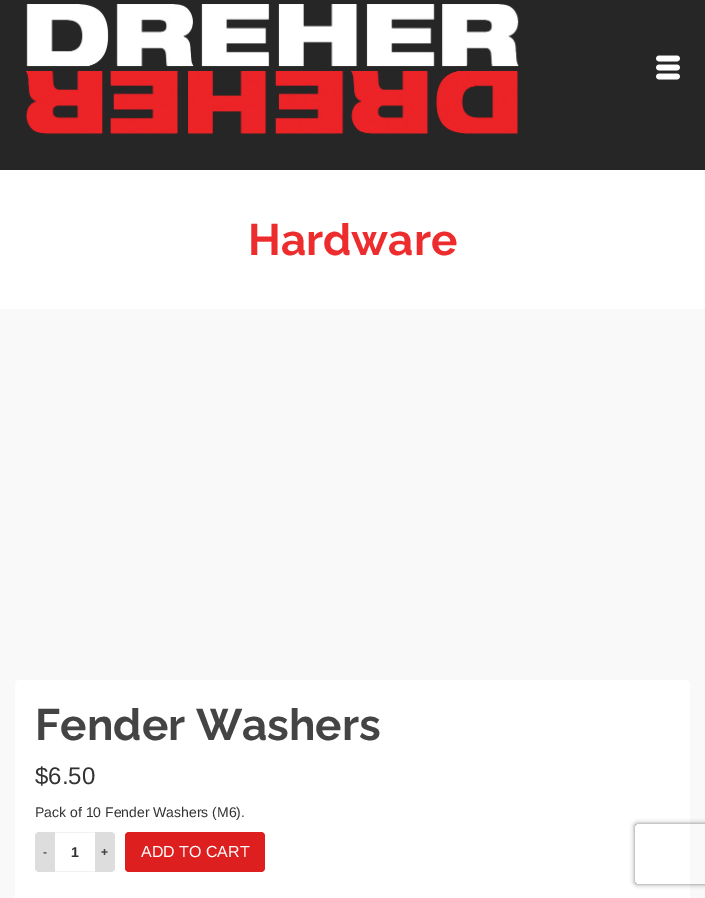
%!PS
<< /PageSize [705 898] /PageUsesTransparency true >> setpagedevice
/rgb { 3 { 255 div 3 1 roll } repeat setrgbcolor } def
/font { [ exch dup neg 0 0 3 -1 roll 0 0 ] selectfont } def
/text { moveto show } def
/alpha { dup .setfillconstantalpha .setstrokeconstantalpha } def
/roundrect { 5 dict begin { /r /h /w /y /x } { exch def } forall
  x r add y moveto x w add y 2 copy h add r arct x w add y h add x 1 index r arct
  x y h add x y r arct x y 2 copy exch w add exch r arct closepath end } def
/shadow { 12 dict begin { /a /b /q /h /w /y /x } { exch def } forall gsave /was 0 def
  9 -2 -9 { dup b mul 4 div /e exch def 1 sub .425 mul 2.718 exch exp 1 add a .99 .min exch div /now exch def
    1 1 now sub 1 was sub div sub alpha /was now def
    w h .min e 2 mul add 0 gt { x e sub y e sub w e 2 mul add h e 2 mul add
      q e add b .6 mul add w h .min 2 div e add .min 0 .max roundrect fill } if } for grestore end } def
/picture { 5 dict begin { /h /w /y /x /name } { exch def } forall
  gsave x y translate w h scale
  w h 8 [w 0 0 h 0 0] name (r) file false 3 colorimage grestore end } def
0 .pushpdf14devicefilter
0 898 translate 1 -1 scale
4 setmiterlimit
249 249 249 rgb
0 0 705 898 rectfill
(img_03.rgb) 0 0 705 309 picture
(img_01.rgb) 25 4 495 131 picture
(img_02.rgb) 656 55 24 25 picture
255 255 255 rgb
15 680 675 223 5 roundrect fill
221 221 221 rgb
39 832 moveto 16 0 rlineto 0 40 rlineto -16 0 rlineto -2 0 -4 -2 -4 -4 rcurveto 0 -32 rlineto 0 -2 2 -4 4 -4 rcurveto closepath fill
242 242 242 rgb
55 832 40 1 rectfill
55 871 40 1 rectfill
221 221 221 rgb
95 832 moveto 16 0 rlineto 2 0 4 2 4 4 rcurveto 0 32 rlineto 0 2 -2 4 -4 4 rcurveto -16 0 rlineto closepath fill
221 31 31 rgb
125 832 140 40 4 roundrect fill
gsave
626 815 moveto 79 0 rlineto 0 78 rlineto -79 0 rlineto closepath 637 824 moveto 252 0 rlineto 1 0 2 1 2 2 rcurveto 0 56 rlineto 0 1 -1 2 -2 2 rcurveto -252 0 rlineto -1 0 -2 -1 -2 -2 rcurveto 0 -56 rlineto 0 -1 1 -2 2 -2 rcurveto closepath eoclip newpath
128 128 128 rgb
635 824 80 60 2 2.5 1 shadow
grestore
/Raleway-Bold 44 font
237 45 45 rgb
(Hardware) 248 255 text
68 68 68 rgb
(Fender Washers) 35 740 text
/LiberationSans-Regular 24 font
51 51 51 rgb
($6.50) 35 784 text
/LiberationSans-Regular 14 font
(Pack of 10 Fender Washers \(M6\).) 35 817 text
/LiberationSans-Bold 12 font
68 68 68 rgb
(-) 43 856 text
/LiberationSans-Bold 14 font
51 51 51 rgb
(1) 71 857 text
/LiberationSans-Bold 12 font
68 68 68 rgb
(+) 101 856 text
/LiberationSans-Regular 16 font
255 255 255 rgb
(ADD TO CART) 141 857 text
.poppdf14devicefilter showpage
